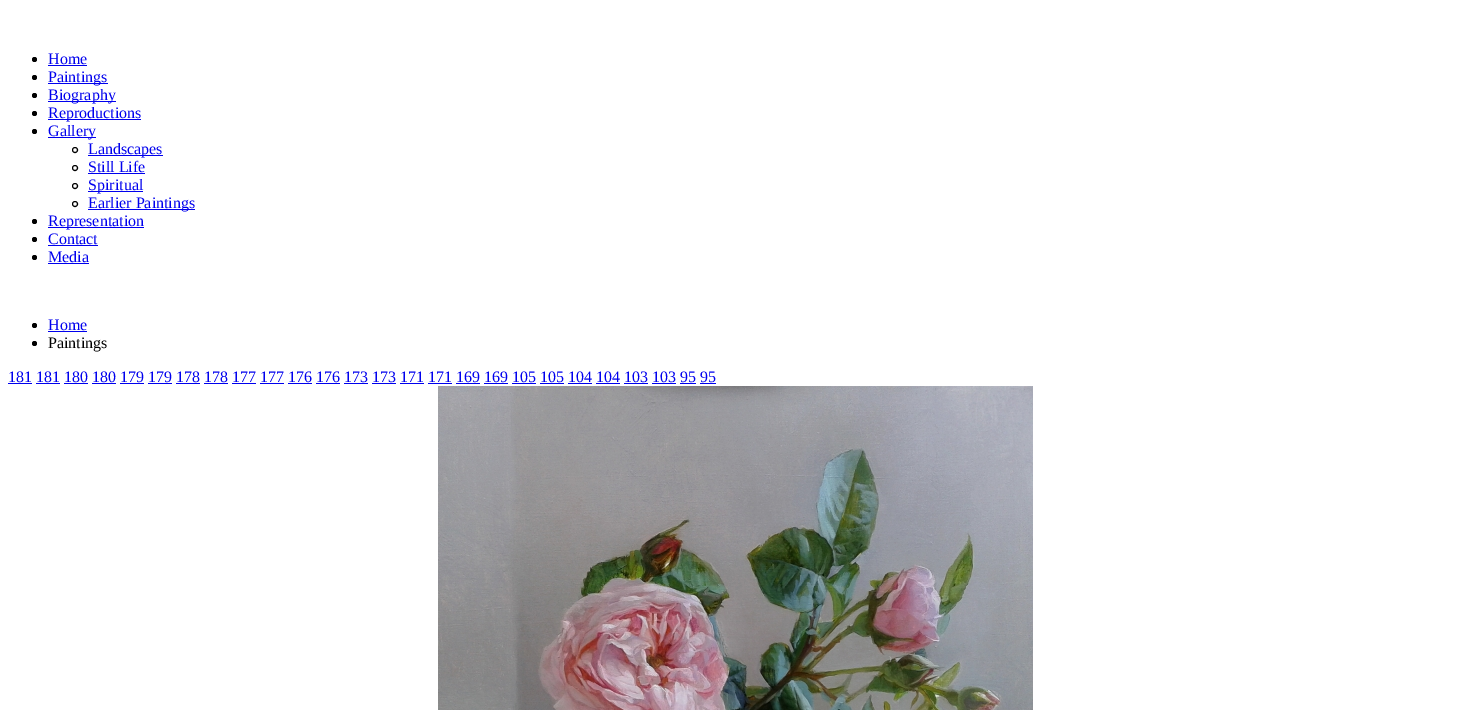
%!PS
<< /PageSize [1471 710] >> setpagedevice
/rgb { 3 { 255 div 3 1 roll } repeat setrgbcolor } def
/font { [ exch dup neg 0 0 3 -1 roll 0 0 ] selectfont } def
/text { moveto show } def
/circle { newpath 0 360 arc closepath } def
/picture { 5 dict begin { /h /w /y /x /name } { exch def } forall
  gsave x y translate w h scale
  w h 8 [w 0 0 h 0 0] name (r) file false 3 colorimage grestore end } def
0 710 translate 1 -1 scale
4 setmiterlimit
255 255 255 rgb
0 0 1471 710 rectfill
0 0 0 rgb
34.5 59.5 2.5 circle fill
0 0 238 rgb
48 65 39 1 rectfill
0 0 0 rgb
34.5 77.5 2.5 circle fill
0 0 238 rgb
48 83 60 1 rectfill
0 0 0 rgb
34.5 95.5 2.5 circle fill
0 0 238 rgb
48 101 68 1 rectfill
0 0 0 rgb
34.5 113.5 2.5 circle fill
0 0 238 rgb
48 119 93 1 rectfill
0 0 0 rgb
34.5 131.5 2.5 circle fill
0 0 238 rgb
48 137 48 1 rectfill
0 0 0 rgb
75 150 2.5 circle stroke
0 0 238 rgb
88 155 75 1 rectfill
0 0 0 rgb
75 168 2.5 circle stroke
0 0 238 rgb
88 173 57 1 rectfill
0 0 0 rgb
75 186 2.5 circle stroke
0 0 238 rgb
88 191 55 1 rectfill
0 0 0 rgb
75 204 2.5 circle stroke
0 0 238 rgb
88 209 107 1 rectfill
0 0 0 rgb
34.5 221.5 2.5 circle fill
0 0 238 rgb
48 227 96 1 rectfill
0 0 0 rgb
34.5 239.5 2.5 circle fill
0 0 238 rgb
48 245 50 1 rectfill
0 0 0 rgb
34.5 257.5 2.5 circle fill
0 0 238 rgb
48 263 41 1 rectfill
0 0 0 rgb
34.5 325.5 2.5 circle fill
0 0 238 rgb
48 331 39 1 rectfill
0 0 0 rgb
34.5 343.5 2.5 circle fill
0 0 238 rgb
8 383 24 1 rectfill
36 383 24 1 rectfill
64 383 24 1 rectfill
92 383 24 1 rectfill
120 383 24 1 rectfill
148 383 24 1 rectfill
176 383 24 1 rectfill
204 383 24 1 rectfill
232 383 24 1 rectfill
260 383 24 1 rectfill
288 383 24 1 rectfill
316 383 24 1 rectfill
344 383 24 1 rectfill
372 383 24 1 rectfill
400 383 24 1 rectfill
428 383 24 1 rectfill
456 383 24 1 rectfill
484 383 24 1 rectfill
512 383 24 1 rectfill
540 383 24 1 rectfill
568 383 24 1 rectfill
596 383 24 1 rectfill
624 383 24 1 rectfill
652 383 24 1 rectfill
680 383 16 1 rectfill
700 383 16 1 rectfill
(img_01.rgb) 438 386 595 324 picture
/LiberationSerif-Regular 16 font
(Home) 48 64 text
(Paintings) 48 82 text
(Biography) 48 100 text
(Reproductions) 48 118 text
(Gallery) 48 136 text
(Landscapes) 88 154 text
(Still Life) 88 172 text
(Spiritual) 88 190 text
(Earlier Paintings) 88 208 text
(Representation) 48 226 text
(Contact) 48 244 text
(Media) 48 262 text
(Home) 48 330 text
0 0 0 rgb
(Paintings) 48 348 text
0 0 238 rgb
(181 181 180 180 179 179 178 178 177 177 176 176 173 173 171 171 169 169 105 105 104 104 103 103 95 95) 8 382 text
showpage
